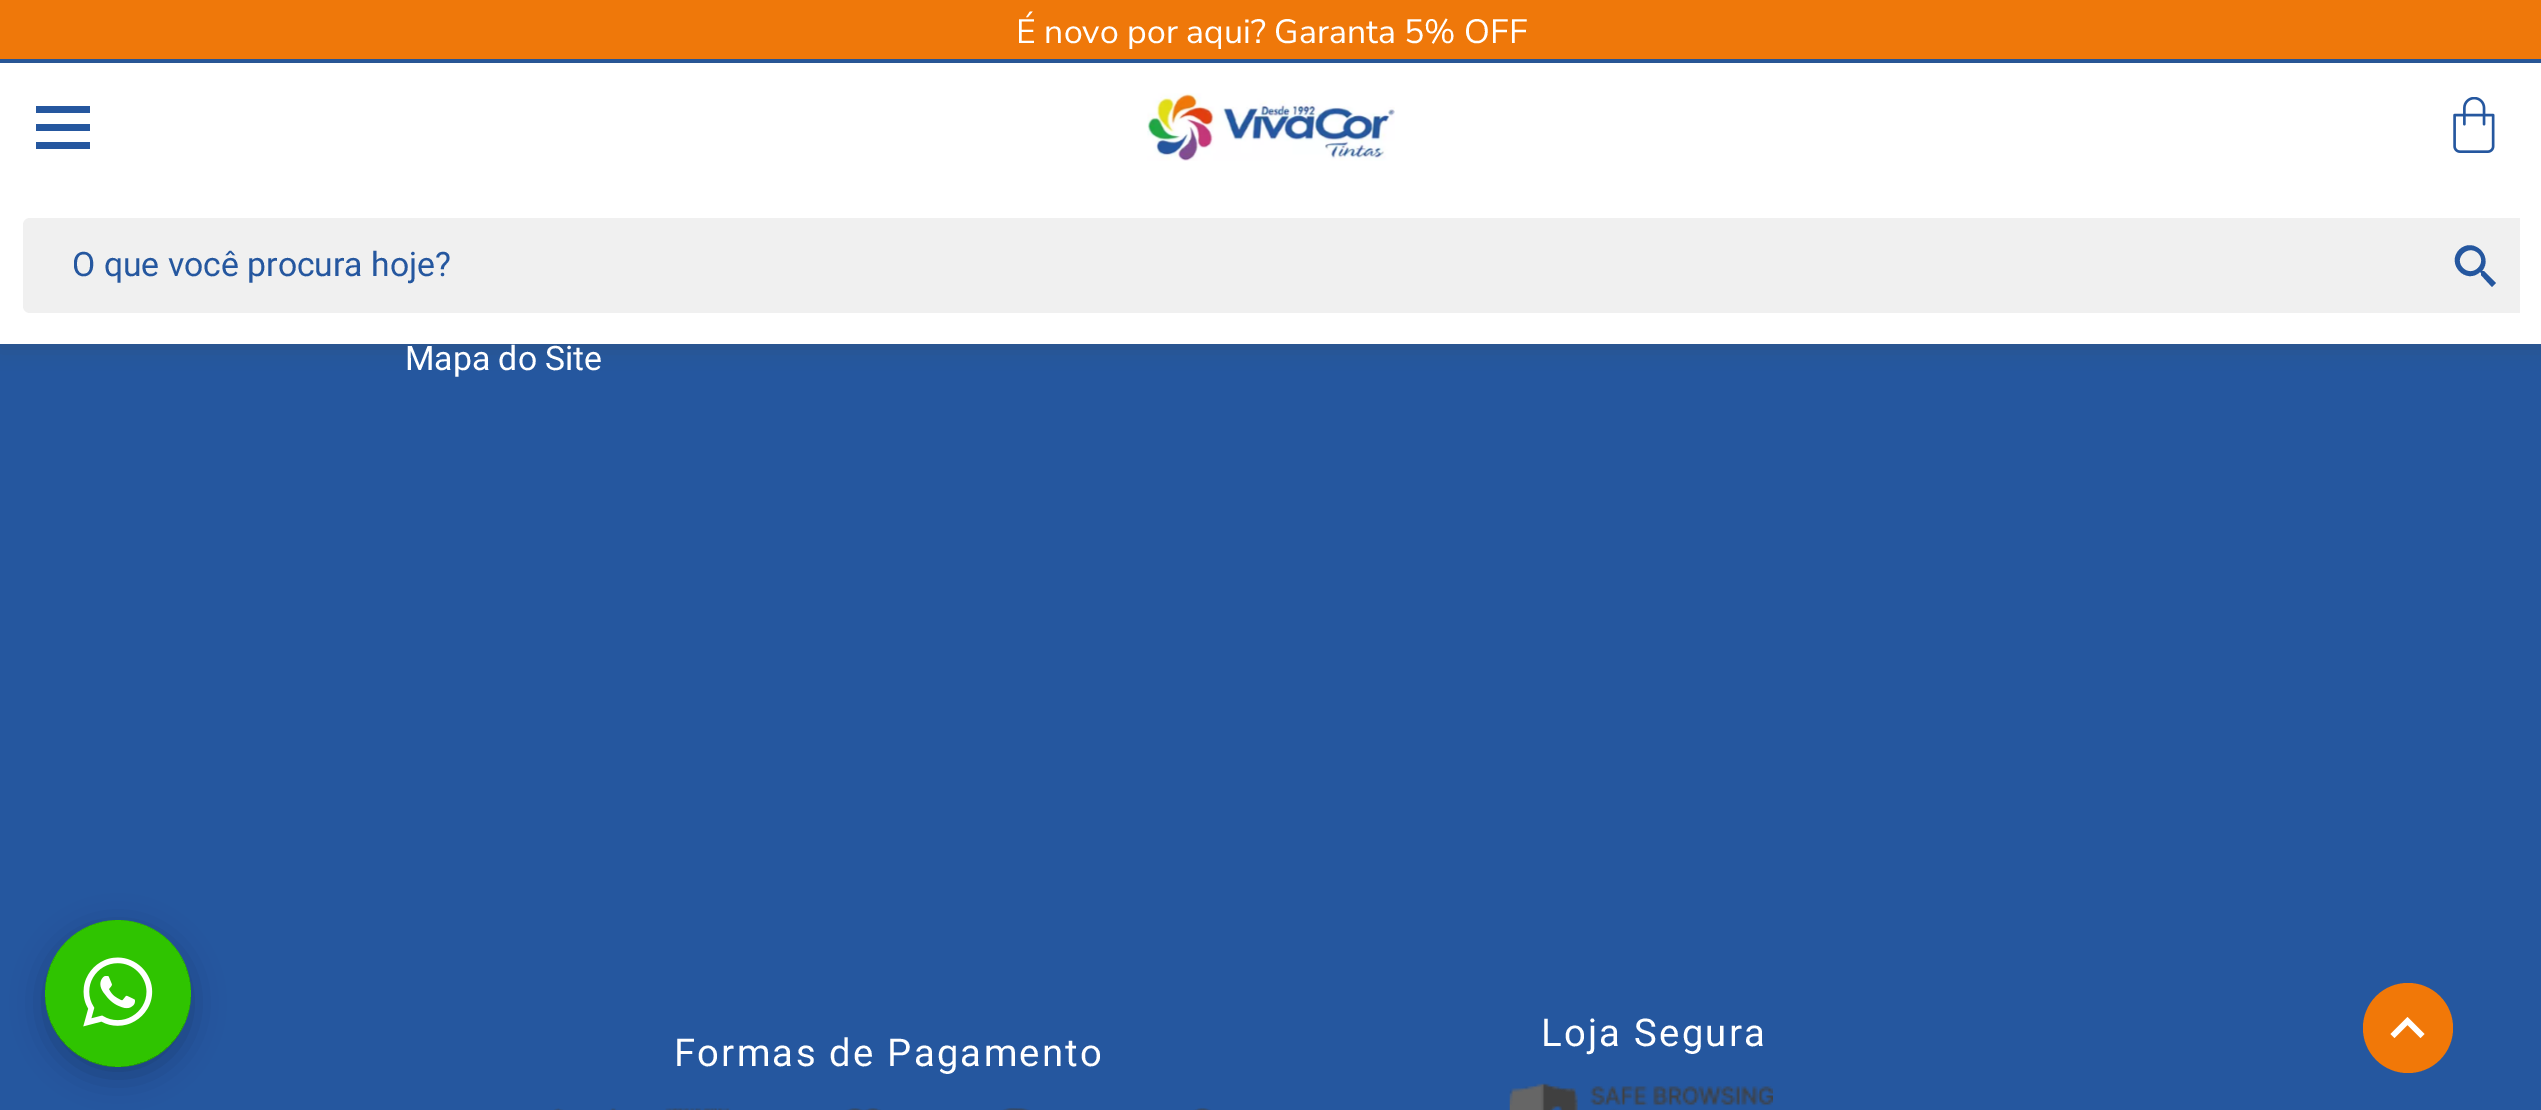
%!PS
<< /PageSize [2541 1110] /PageUsesTransparency true >> setpagedevice
/rgb { 3 { 255 div 3 1 roll } repeat setrgbcolor } def
/font { [ exch dup neg 0 0 3 -1 roll 0 0 ] selectfont } def
/text { moveto show } def
/alpha { dup .setfillconstantalpha .setstrokeconstantalpha } def
/circle { newpath 0 360 arc closepath } def
/roundrect { 5 dict begin { /r /h /w /y /x } { exch def } forall
  x r add y moveto x w add y 2 copy h add r arct x w add y h add x 1 index r arct
  x y h add x y r arct x y 2 copy exch w add exch r arct closepath end } def
/shadow { 12 dict begin { /a /b /q /h /w /y /x } { exch def } forall gsave /was 0 def
  9 -2 -9 { dup b mul 4 div /e exch def 1 sub .425 mul 2.718 exch exp 1 add a .99 .min exch div /now exch def
    1 1 now sub 1 was sub div sub alpha /was now def
    w h .min e 2 mul add 0 gt { x e sub y e sub w e 2 mul add h e 2 mul add
      q e add b .6 mul add w h .min 2 div e add .min 0 .max roundrect fill } if } for grestore end } def
/picture { 5 dict begin { /h /w /y /x /name } { exch def } forall
  gsave x y translate w h scale
  w h 8 [w 0 0 h 0 0] name (r) file false 3 colorimage grestore end } def
0 .pushpdf14devicefilter
0 1110 translate 1 -1 scale
4 setmiterlimit
37 87 159 rgb
0 0 2541 1110 rectfill
67 67 69 rgb
0 65 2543 282 0 11 0.3 shadow
239 120 10 rgb
0 0 2541 59 rectfill
255 255 255 rgb
0 63 2541 281 rectfill
(img_01.rgb) 2453 97 42 56 picture
37 87 159 rgb
36 124 54 7 rectfill
36 106 54 7 rectfill
36 142 54 7 rectfill
(img_02.rgb) 1147 93 248 68 picture
240 240 240 rgb
30 218 moveto 2490 0 rlineto 0 95 rlineto -2490 0 rlineto -4 0 -7 -3 -7 -7 rcurveto 0 -81 rlineto 0 -4 3 -7 7 -7 rcurveto closepath fill
37 87 159 rgb
2463 268 moveto 10 10 25 -5 15 -15 rcurveto -10 -9 -25 5 -15 15 rcurveto closepath 2484 271 moveto 12 12 rlineto -4 4 rlineto -11 -12 rlineto 0 -2 rlineto -1 -1 rlineto -14 13 -34 -8 -21 -22 rcurveto 14 -14 35 6 23 21 rcurveto closepath fill
47 196 0 rgb
45 920 146 147 73 roundrect fill
gsave
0 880 moveto 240 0 rlineto 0 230 rlineto -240 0 rlineto closepath 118 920 moveto 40.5 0 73 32.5 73 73 rcurveto 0 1 rlineto 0 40.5 -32.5 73 -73 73 rcurveto -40.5 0 -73 -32.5 -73 -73 rcurveto 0 -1 rlineto 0 -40.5 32.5 -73 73 -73 rcurveto closepath eoclip newpath
0 0 0 rgb
45 929 146 147 73 16 0.24 shadow
grestore
(img_03.rgb) 83 957 70 70 picture
(img_04.rgb) 554 1108 657 2 picture
(img_05.rgb) 1509 1083 264 27 picture
241 120 8 rgb
2408 1028 45 circle fill
255 255 255 rgb
2394.5 1038 moveto -4 -4 rlineto 17 -17 rlineto 17 17 rlineto -4 4 rlineto -13 -13 rlineto closepath fill
/NunitoSans-ExtraLight 33.75 font
(É novo por aqui? Garanta 5% OFF) 1016 43 text
/Roboto-Regular 33.75 font
37 87 159 rgb
(O que você procura hoje?) 72 276 text
255 255 255 rgb
(Mapa do Site) 405 370 text
/Roboto-Regular 38.25 font
674 1066 moveto 2.25 0 (Formas de Pagamento) ashow
1541 1046 moveto 2.25 0 (Loja Segura) ashow
.poppdf14devicefilter showpage
